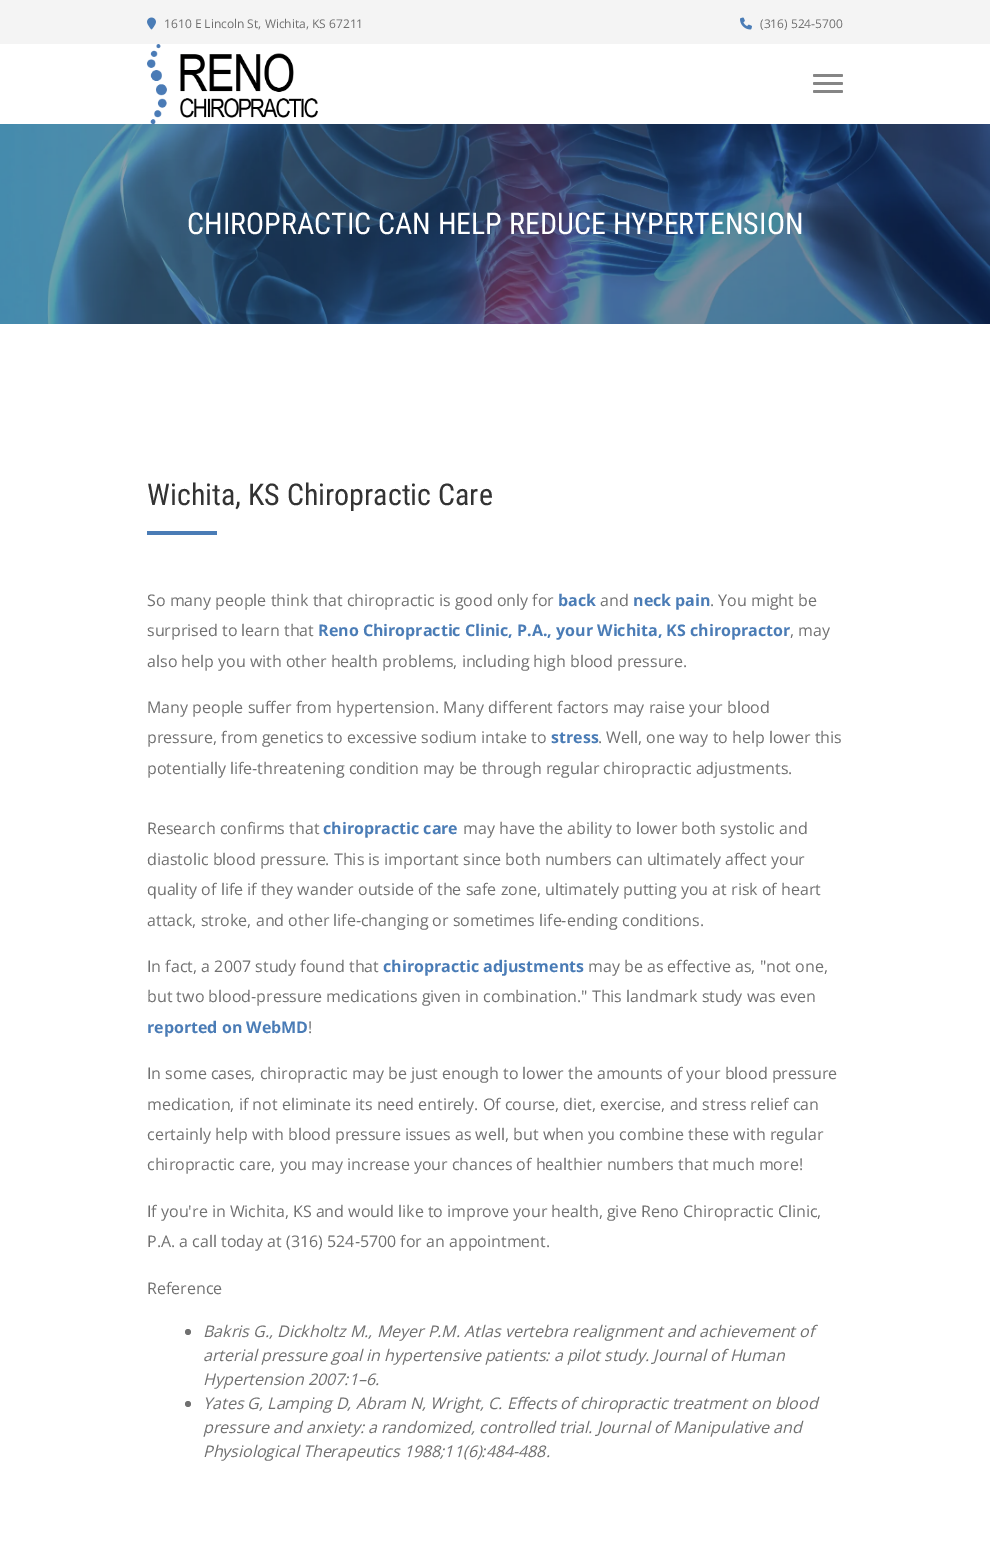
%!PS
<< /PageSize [990 1550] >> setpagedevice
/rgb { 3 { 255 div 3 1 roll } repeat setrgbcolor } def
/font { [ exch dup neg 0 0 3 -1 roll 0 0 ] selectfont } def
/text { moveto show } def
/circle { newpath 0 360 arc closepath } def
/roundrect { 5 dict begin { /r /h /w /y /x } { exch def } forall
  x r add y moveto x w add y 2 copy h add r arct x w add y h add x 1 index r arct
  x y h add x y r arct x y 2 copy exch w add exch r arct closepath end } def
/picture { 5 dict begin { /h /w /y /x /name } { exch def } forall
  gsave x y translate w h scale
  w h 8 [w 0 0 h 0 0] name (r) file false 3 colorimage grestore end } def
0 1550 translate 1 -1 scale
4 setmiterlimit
255 255 255 rgb
0 0 990 1550 rectfill
244 244 244 rgb
0 0 990 44 rectfill
(img_01.rgb) 147 17 9 13 picture
(img_02.rgb) 740 17 12 13 picture
(img_03.rgb) 147 44 171 80 picture
133 133 133 rgb
813 74 30 3 1.5 roundrect fill
813 82 30 3 1.5 roundrect fill
813 90 30 3 1.5 roundrect fill
(img_04.rgb) 0 124 990 200 picture
74 124 182 rgb
147 531 70 4 rectfill
112 112 112 rgb
188 1332 3 circle fill
188 1404 3 circle fill
/OpenSans-Regular 12 font
(1610 E Lincoln St, Wichita, KS 67211) 164 28 text
(\(316\) 524-5700) 760 28 text
/RobotoCondensed-Regular 30 font
255 255 255 rgb
(CHIROPRACTIC CAN HELP REDUCE HYPERTENSION) 187 234 text
51 51 51 rgb
(Wichita, KS Chiropractic Care) 147 505 text
/OpenSans-Regular 16 font
112 112 112 rgb
(So many people think that chiropractic is good only for) 147 606 text
/OpenSans-Bold 16 font
74 124 182 rgb
(back) 558 606 text
/OpenSans-Regular 16 font
112 112 112 rgb
(and) 600 606 text
/OpenSans-Bold 16 font
74 124 182 rgb
(neck pain) 633 606 text
/OpenSans-Regular 16 font
112 112 112 rgb
(. You might be) 710 606 text
(surprised to learn that) 147 636 text
/OpenSans-Bold 16 font
74 124 182 rgb
(Reno Chiropractic Clinic, P.A., your Wichita, KS chiropractor) 318 636 text
/OpenSans-Regular 16 font
112 112 112 rgb
(, may) 790 636 text
(also help you with other health problems, including high blood pressure.) 147 667 text
(Many people suffer from hypertension. Many different factors may raise your blood) 147 713 text
(pressure, from genetics to excessive sodium intake to) 147 743 text
/OpenSans-Bold 16 font
74 124 182 rgb
(stress) 551 743 text
/OpenSans-Regular 16 font
112 112 112 rgb
(. Well, one way to help lower this) 598 743 text
(potentially life-threatening condition may be through regular chiropractic adjustments.) 147 774 text
(Research confirms that) 147 834 text
/OpenSans-Bold 16 font
74 124 182 rgb
(chiropractic care) 323 834 text
/OpenSans-Regular 16 font
112 112 112 rgb
(may have the ability to lower both systolic and) 463 834 text
(diastolic blood pressure. This is important since both numbers can ultimately affect your) 147 865 text
(quality of life if they wander outside of the safe zone, ultimately putting you at risk of heart) 147 895 text
(attack, stroke, and other life-changing or sometimes life-ending conditions.) 147 926 text
(In fact, a 2007 study found that) 147 972 text
/OpenSans-Bold 16 font
74 124 182 rgb
(chiropractic adjustments) 383 972 text
/OpenSans-Regular 16 font
112 112 112 rgb
(may be as effective as, "not one,) 588 972 text
(but two blood-pressure medications given in combination." This landmark study was even) 147 1002 text
/OpenSans-Bold 16 font
74 124 182 rgb
(reported on WebMD) 147 1033 text
/OpenSans-Regular 16 font
112 112 112 rgb
(!) 308 1033 text
(In some cases, chiropractic may be just enough to lower the amounts of your blood pressure) 147 1079 text
(medication, if not eliminate its need entirely. Of course, diet, exercise, and stress relief can) 147 1110 text
(certainly help with blood pressure issues as well, but when you combine these with regular) 147 1140 text
(chiropractic care, you may increase your chances of healthier numbers that much more!) 147 1170 text
(If you're in Wichita, KS and would like to improve your health, give Reno Chiropractic Clinic,) 147 1217 text
(P.A. a call today at \(316\) 524-5700 for an appointment.) 147 1247 text
(Reference) 147 1294 text
/OpenSans-Italic 16 font
(Bakris G., Dickholtz M., Meyer P.M. Atlas vertebra realignment and achievement of) 203 1337 text
(arterial pressure goal in hypertensive patients: a pilot study. Journal of Human) 203 1361 text
(Hypertension 2007:1–6.) 203 1385 text
(Yates G, Lamping D, Abram N, Wright, C. Effects of chiropractic treatment on blood) 203 1409 text
(pressure and anxiety: a randomized, controlled trial. Journal of Manipulative and) 203 1433 text
(Physiological Therapeutics 1988;11\(6\):484-488.) 203 1457 text
showpage
